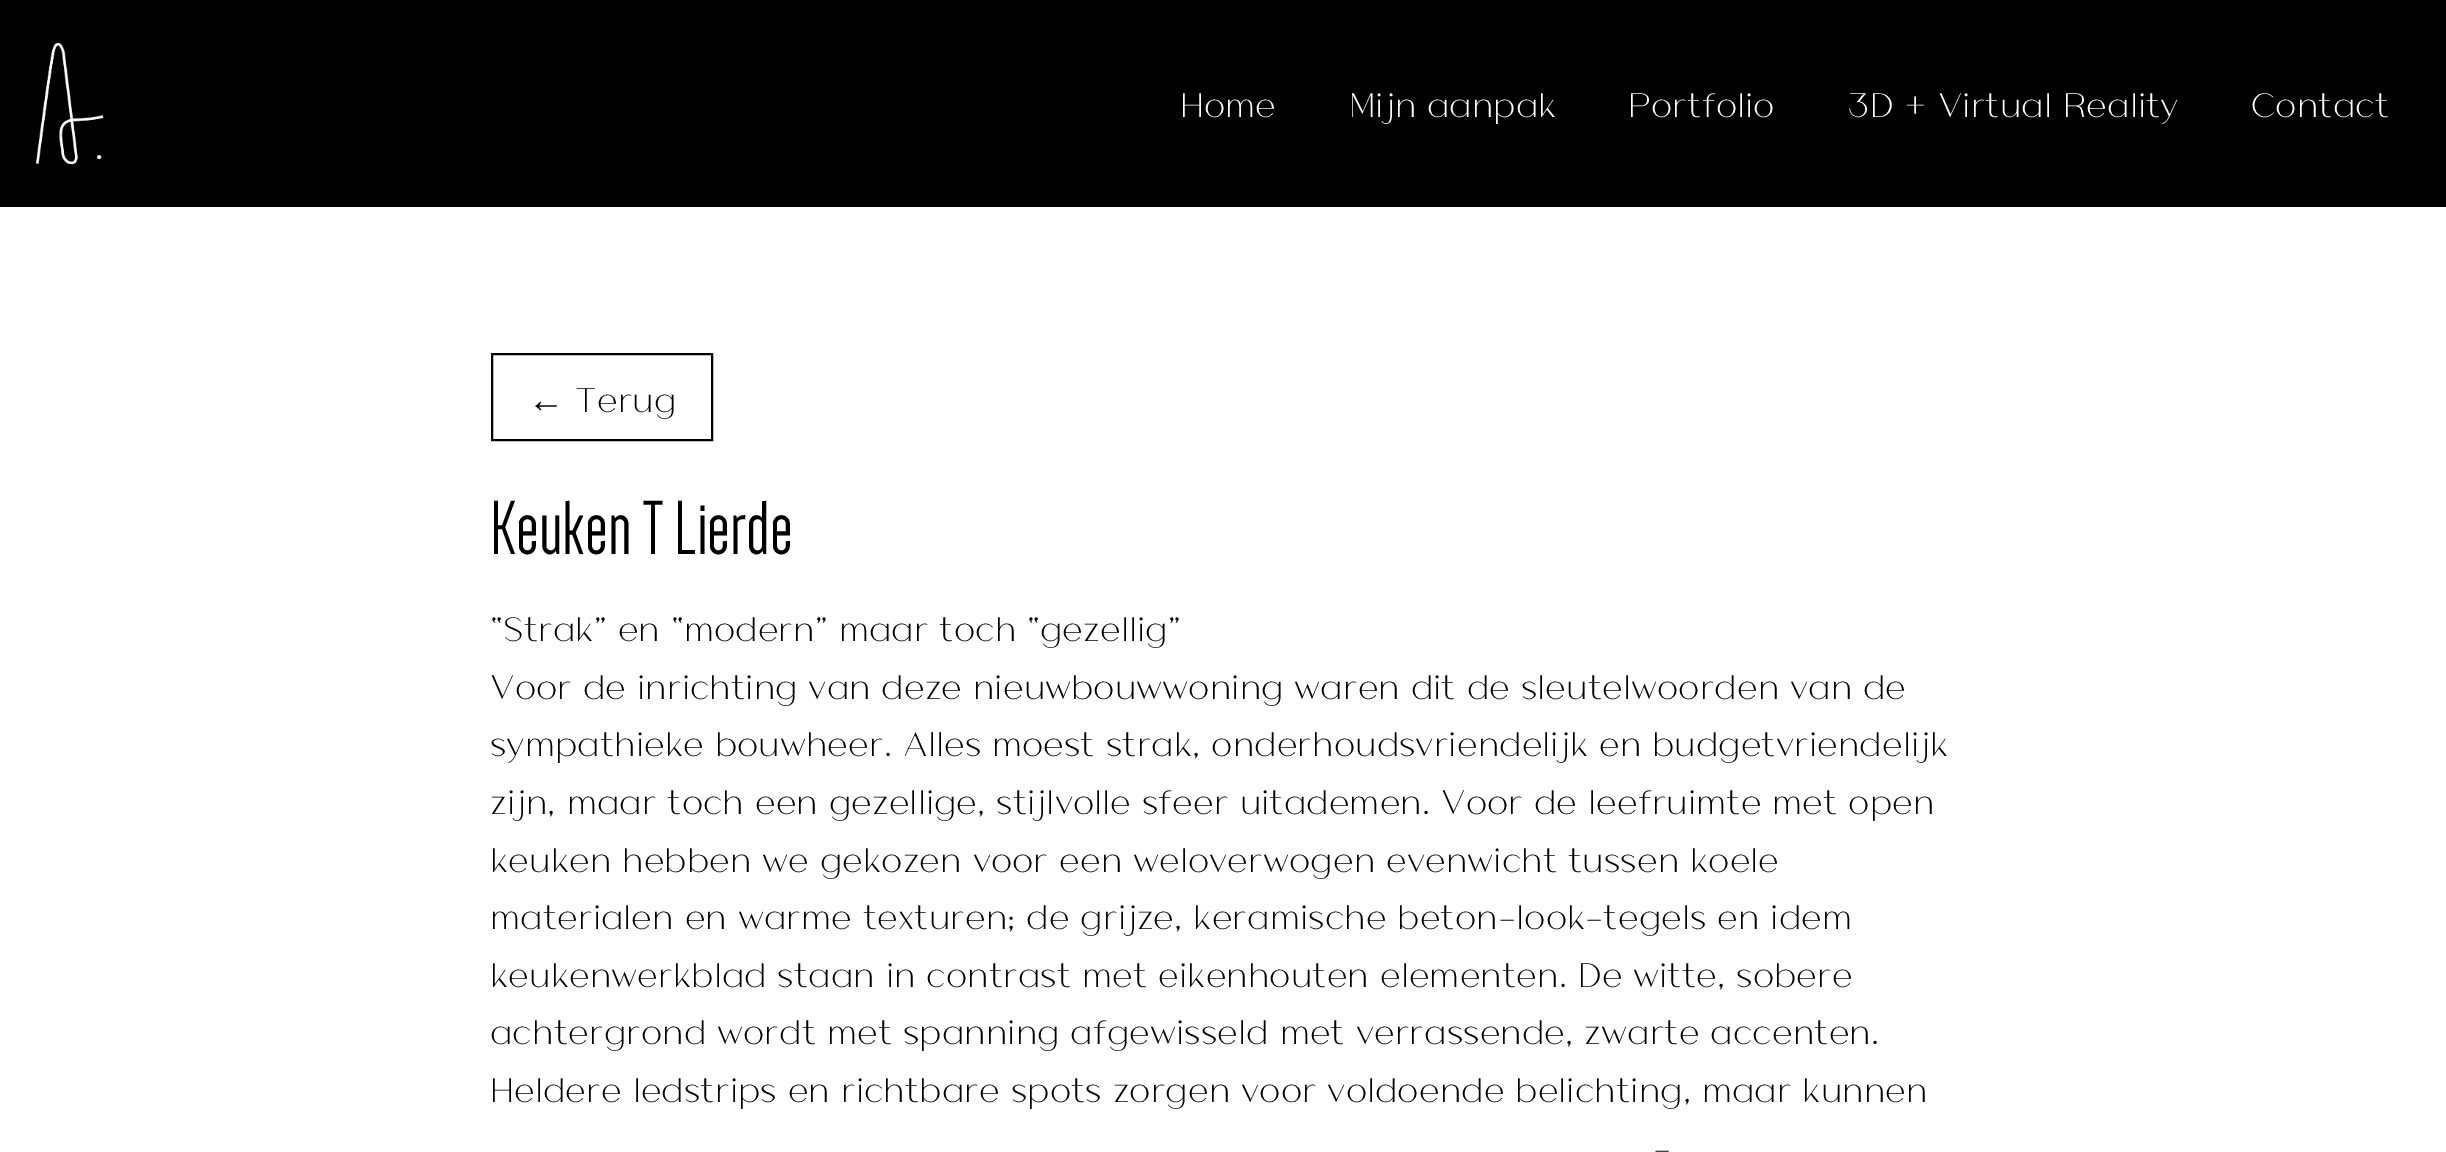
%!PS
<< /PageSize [2446 1152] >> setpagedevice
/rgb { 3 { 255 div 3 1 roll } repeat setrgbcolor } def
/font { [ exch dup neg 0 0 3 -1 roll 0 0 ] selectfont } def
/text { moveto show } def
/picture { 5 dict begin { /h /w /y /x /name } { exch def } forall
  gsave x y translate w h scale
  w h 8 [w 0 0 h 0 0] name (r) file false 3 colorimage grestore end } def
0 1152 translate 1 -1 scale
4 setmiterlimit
255 255 255 rgb
0 0 2446 1152 rectfill
0 0 0 rgb
0 0 2446 207 rectfill
(img_01.rgb) 36 42 68 123 picture
2 setlinewidth
492 354 220 86 rectstroke
/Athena-Light 36 font
255 255 255 rgb
(Home) 1180 117 text
(Mijn aanpak) 1349 117 text
(Portfolio) 1628 117 text
(3D + Virtual Reality) 1847 117 text
(Contact) 2251 117 text
/LiberationSans-Regular 36 font
0 0 0 rgb
(←) 528 412 text
/Athena-Light 36 font
(Terug) 575 412 text
/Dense-Regular 79 font
(Keuken T Lierde) 490 554 text
/Athena-Light 36 font
(“Strak” en “modern” maar toch “gezellig”) 490 641 text
(Voor de inrichting van deze nieuwbouwwoning waren dit de sleutelwoorden van de) 490 699 text
(sympathieke bouwheer. Alles moest strak, onderhoudsvriendelijk en budgetvriendelijk) 490 756 text
(zijn, maar toch een gezellige, stijlvolle sfeer uitademen. Voor de leefruimte met open) 490 814 text
(keuken hebben we gekozen voor een weloverwogen evenwicht tussen koele) 490 872 text
(materialen en warme texturen; de grijze, keramische beton-look-tegels en idem) 490 929 text
(keukenwerkblad staan in contrast met eikenhouten elementen. De witte, sobere) 490 987 text
(achtergrond wordt met spanning afgewisseld met verrassende, zwarte accenten.) 490 1044 text
(Heldere ledstrips en richtbare spots zorgen voor voldoende belichting, maar kunnen) 490 1102 text
(-) 1653 1160 text
showpage
